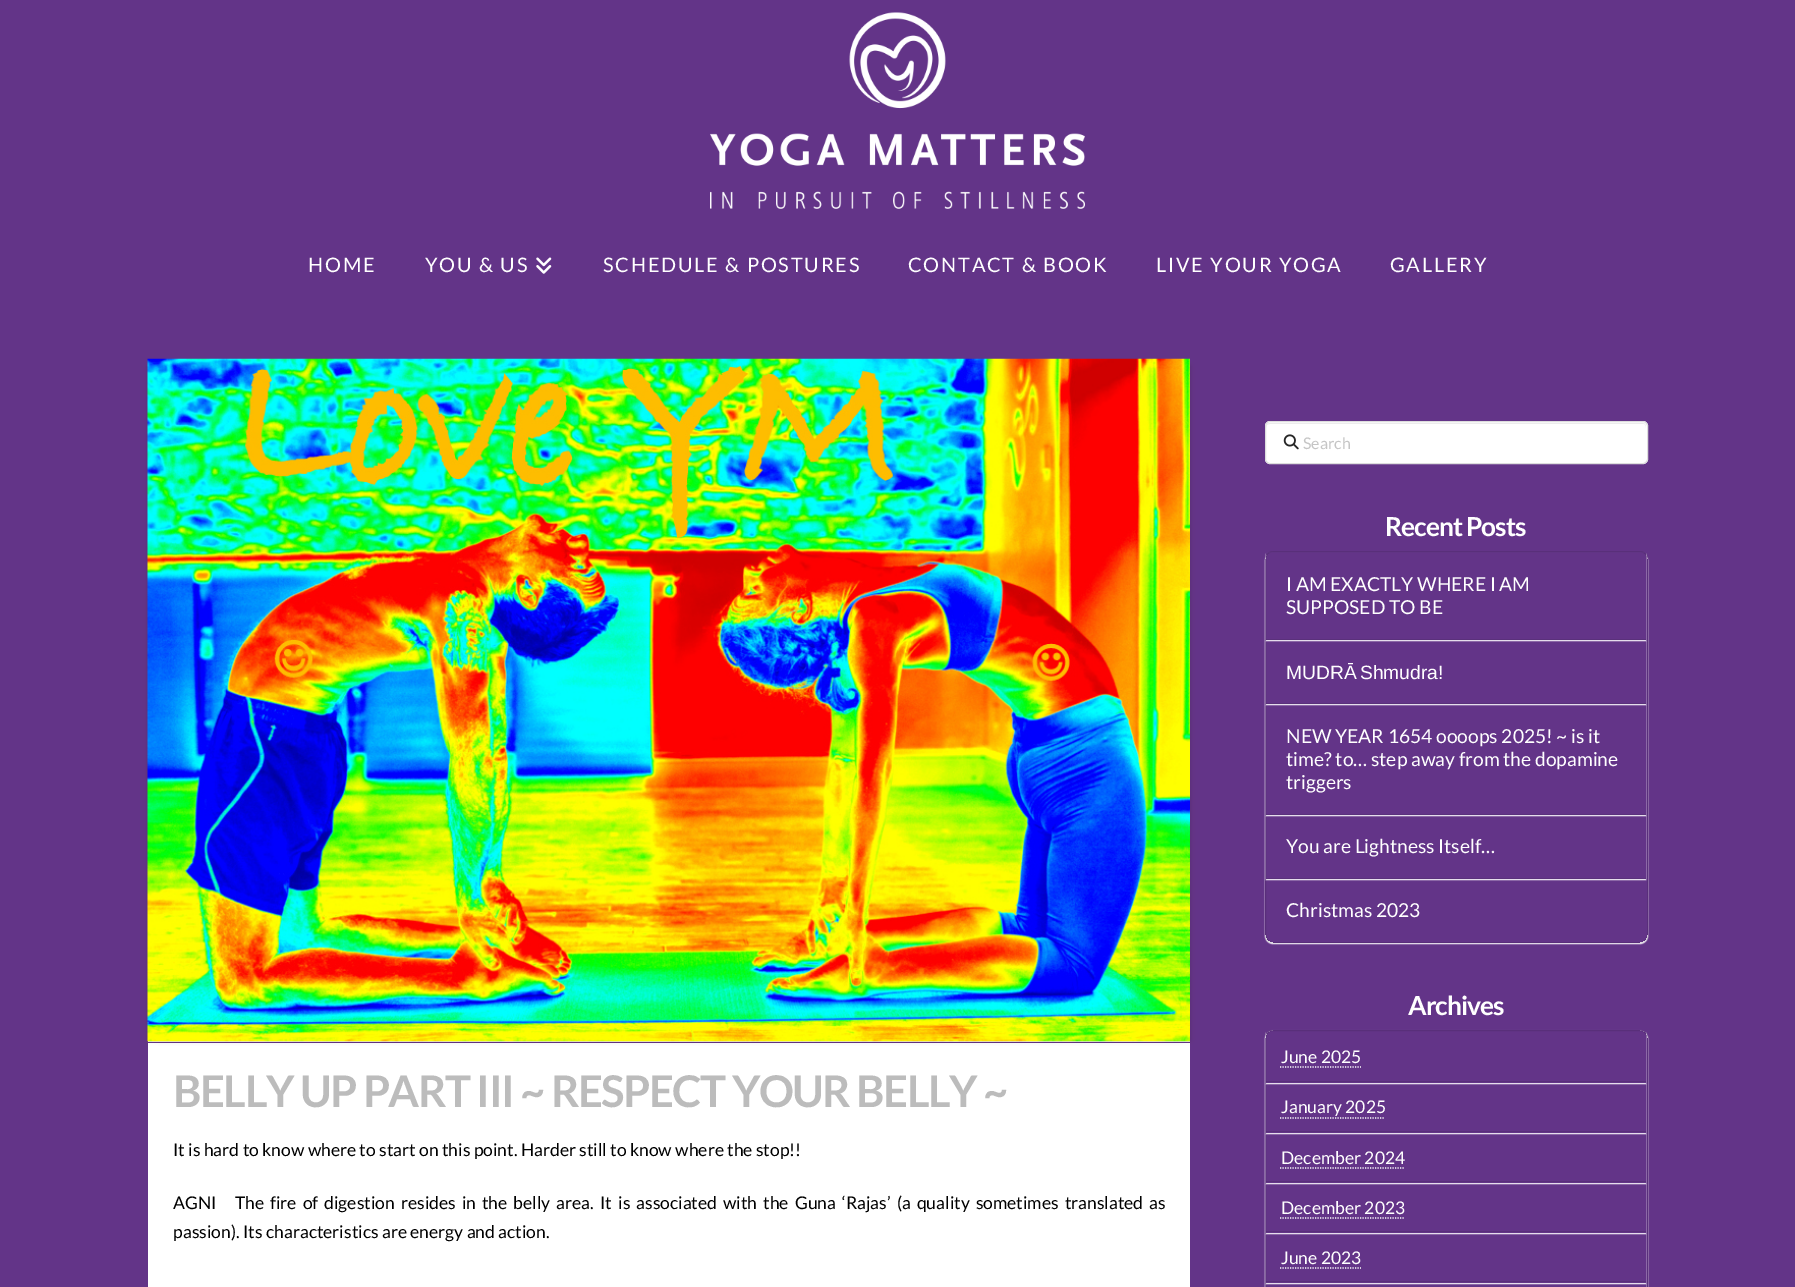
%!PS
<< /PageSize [1795 1287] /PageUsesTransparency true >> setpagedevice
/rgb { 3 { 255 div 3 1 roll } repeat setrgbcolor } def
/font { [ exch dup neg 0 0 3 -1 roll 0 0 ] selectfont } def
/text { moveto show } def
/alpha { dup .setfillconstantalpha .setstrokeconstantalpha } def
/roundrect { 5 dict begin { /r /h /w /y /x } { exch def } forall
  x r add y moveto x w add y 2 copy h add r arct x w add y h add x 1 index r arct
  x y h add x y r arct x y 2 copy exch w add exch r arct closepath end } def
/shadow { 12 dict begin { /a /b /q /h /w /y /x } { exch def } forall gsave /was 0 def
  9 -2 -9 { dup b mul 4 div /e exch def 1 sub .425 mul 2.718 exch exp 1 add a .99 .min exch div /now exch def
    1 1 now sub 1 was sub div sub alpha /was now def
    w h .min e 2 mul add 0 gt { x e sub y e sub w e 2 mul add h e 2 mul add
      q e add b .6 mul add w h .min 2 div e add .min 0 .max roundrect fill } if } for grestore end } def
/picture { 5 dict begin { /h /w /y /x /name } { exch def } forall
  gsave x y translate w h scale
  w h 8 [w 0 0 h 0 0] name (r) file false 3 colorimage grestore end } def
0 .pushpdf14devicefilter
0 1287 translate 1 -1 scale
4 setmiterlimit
99 52 136 rgb
0 0 1795 1287 rectfill
(img_01.rgb) 710 12 375 197 picture
(img_02.rgb) 536 257 16 17 picture
255 255 255 rgb
148 1043 1042 244 rectfill
0 0 0 rgb
148 366 1032 674 0 2.5 0.13 shadow
158 366 1032 674 0 2.5 0.13 shadow
221 221 221 rgb
148 1041 1042 1 rectfill
(img_03.rgb) 147 358 1043 684 picture
255 255 255 rgb
1265 421 383 43 5 roundrect fill
236 236 236 rgb
1270 424 moveto 374 0 rlineto 2 1 rlineto 0 3 rlineto 0 -3 -1 -5 -4 -5 rcurveto -372 0 rlineto -3 0 -4 2 -4 5 rcurveto 0 -3 2 -4 4 -4 rcurveto closepath fill
221 221 221 rgb
1265.5 421.5 382 42 4.5 roundrect stroke
(img_04.rgb) 1283 434 16 16 picture
gsave
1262 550 moveto 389 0 rlineto 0 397 rlineto -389 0 rlineto closepath 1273 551 moveto 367 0 rlineto 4.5 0 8 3.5 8 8 rcurveto 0 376 rlineto 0 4.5 -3.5 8 -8 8 rcurveto -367 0 rlineto -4.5 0 -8 -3.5 -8 -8 rcurveto 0 -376 rlineto 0 -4.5 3.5 -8 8 -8 rcurveto closepath eoclip newpath
255 255 255 rgb
1265 553 383 391 8 0.5 0.95 shadow
grestore
0.1 alpha
0 0 0 rgb
1265.5 551.5 382 391 7.5 roundrect stroke
gsave
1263 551 moveto 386 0 rlineto 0 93 rlineto -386 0 rlineto closepath 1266 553 moveto 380 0 rlineto 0 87 rlineto -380 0 rlineto closepath eoclip newpath
1 alpha
255 255 255 rgb
1266 554 380 87 0 0.5 0.95 shadow
grestore
1266 639 380 1 rectfill
gsave
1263 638 moveto 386 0 rlineto 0 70 rlineto -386 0 rlineto closepath 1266 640 moveto 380 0 rlineto 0 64 rlineto -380 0 rlineto closepath eoclip newpath
1 alpha
255 255 255 rgb
1266 641 380 64 0 0.5 0.95 shadow
grestore
1266 703 380 1 rectfill
gsave
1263 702 moveto 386 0 rlineto 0 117 rlineto -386 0 rlineto closepath 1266 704 moveto 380 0 rlineto 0 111 rlineto -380 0 rlineto closepath eoclip newpath
1 alpha
255 255 255 rgb
1266 705 380 111 0 0.5 0.95 shadow
grestore
1266 814 380 1 rectfill
gsave
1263 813 moveto 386 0 rlineto 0 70 rlineto -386 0 rlineto closepath 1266 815 moveto 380 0 rlineto 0 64 rlineto -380 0 rlineto closepath eoclip newpath
1 alpha
255 255 255 rgb
1266 816 380 64 0 0.5 0.95 shadow
grestore
1266 878 380 1 rectfill
gsave
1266 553 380 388 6 roundrect clip newpath
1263 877 moveto 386 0 rlineto 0 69 rlineto -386 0 rlineto closepath 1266 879 moveto 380 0 rlineto 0 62 rlineto -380 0 rlineto closepath eoclip newpath
1 alpha
255 255 255 rgb
1266 880 380 63 0 0.5 0.95 shadow
grestore
gsave
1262 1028 moveto 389 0 rlineto 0 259 rlineto -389 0 rlineto closepath 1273 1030 moveto 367 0 rlineto 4.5 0 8 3.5 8 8 rcurveto 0 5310 rlineto 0 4.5 -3.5 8 -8 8 rcurveto -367 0 rlineto -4.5 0 -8 -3.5 -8 -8 rcurveto 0 -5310 rlineto 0 -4.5 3.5 -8 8 -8 rcurveto closepath eoclip newpath
1 alpha
255 255 255 rgb
1265 1031 383 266 8 0.5 0.95 shadow
grestore
1265.5 1030.5 382 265 7.5 roundrect stroke
gsave
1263 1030 moveto 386 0 rlineto 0 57 rlineto -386 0 rlineto closepath 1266 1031 moveto 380 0 rlineto 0 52 rlineto -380 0 rlineto closepath eoclip newpath
1 alpha
255 255 255 rgb
1266 1033 380 51 0 0.5 0.95 shadow
grestore
1266 1081 380 1 rectfill
1 alpha
255 255 255 rgb
1.2 setlinewidth
[1.25 1.25] 0 setdash
1280 1067 moveto 81 0 rlineto stroke
gsave
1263 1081 moveto 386 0 rlineto 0 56 rlineto -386 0 rlineto closepath 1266 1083 moveto 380 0 rlineto 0 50 rlineto -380 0 rlineto closepath eoclip newpath
1266 1084 380 50 0 0.5 0.95 shadow
grestore
0.1 alpha
0 0 0 rgb
1266 1131 380 1 rectfill
1 alpha
255 255 255 rgb
1280 1118 moveto 105 0 rlineto stroke
gsave
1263 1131 moveto 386 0 rlineto 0 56 rlineto -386 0 rlineto closepath 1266 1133 moveto 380 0 rlineto 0 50 rlineto -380 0 rlineto closepath eoclip newpath
1266 1134 380 50 0 0.5 0.95 shadow
grestore
0.1 alpha
0 0 0 rgb
1266 1181 380 1 rectfill
1 alpha
255 255 255 rgb
1280 1168 moveto 125 0 rlineto stroke
gsave
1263 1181 moveto 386 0 rlineto 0 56 rlineto -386 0 rlineto closepath 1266 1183 moveto 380 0 rlineto 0 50 rlineto -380 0 rlineto closepath eoclip newpath
1266 1184 380 50 0 0.5 0.95 shadow
grestore
0.1 alpha
0 0 0 rgb
1266 1231 380 1 rectfill
1 alpha
255 255 255 rgb
1280 1218 moveto 125 0 rlineto stroke
gsave
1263 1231 moveto 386 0 rlineto 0 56 rlineto -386 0 rlineto closepath 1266 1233 moveto 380 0 rlineto 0 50 rlineto -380 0 rlineto closepath eoclip newpath
1266 1234 380 50 0 0.5 0.95 shadow
grestore
0.1 alpha
0 0 0 rgb
1266 1281 380 1 rectfill
1 alpha
255 255 255 rgb
1280 1268 moveto 81 0 rlineto stroke
gsave
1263 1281 moveto 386 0 rlineto 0 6 rlineto -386 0 rlineto closepath 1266 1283 moveto 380 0 rlineto 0 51 rlineto -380 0 rlineto closepath eoclip newpath
1266 1284 380 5 0 0.5 0.95 shadow
grestore
/Lato-Regular 20 font
308 272 moveto 1.75 0 (HOME) ashow
425 272 moveto 1.75 0 (YOU & US) ashow
603 272 moveto 1.75 0 (SCHEDULE & POSTURES) ashow
908 272 moveto 1.75 0 (CONTACT & BOOK) ashow
1156 272 moveto 1.75 0 (LIVE YOUR YOGA) ashow
1390 272 moveto 1.75 0 (GALLERY) ashow
/Lato-Bold 43.75 font
188 188 188 rgb
173 1107 moveto -1.55 0 (BELLY UP PART III ~ RESPECT YOUR BELLY ~) ashow
/Lato-Regular 17.5 font
0 0 0 rgb
(It is hard to know where to start on this point. Harder still to know where the stop!!) 173 1156 text
173 1209 moveto 2.7 0 32 (AGNI   The fire of digestion resides in the belly area. It is associated with the Guna ‘Rajas’ \(a quality sometimes translated as) widthshow
(passion\). Its characteristics are energy and action.) 173 1238 text
/Lato-Regular 16 font
197 197 197 rgb
(Search) 1303 449 text
/Lato-Bold 26.25 font
255 255 255 rgb
1385 536 moveto -1 0 (Recent Posts) ashow
/Lato-Regular 19.25 font
(I AM EXACTLY WHERE I AM) 1286 591 text
(SUPPOSED TO BE) 1286 614 text
/LiberationSans-Regular 19.25 font
1286 679 moveto -2 0 32 (MUDRĀ Shmudra!) widthshow
/Lato-Regular 19.25 font
(NEW YEAR 1654 oooops 2025! ~ is it) 1286 743 text
(time? to… step away from the dopamine) 1286 766 text
(triggers) 1286 789 text
(You are Lightness Itself…) 1286 853 text
(Christmas 2023) 1286 917 text
/Lato-Bold 26.25 font
1408 1015 moveto -1 0 (Archives) ashow
/Lato-Regular 17.5 font
(June 2025) 1281 1063 text
(January 2025) 1281 1113 text
(December 2024) 1281 1164 text
(December 2023) 1281 1214 text
(June 2023) 1281 1264 text
.poppdf14devicefilter showpage
